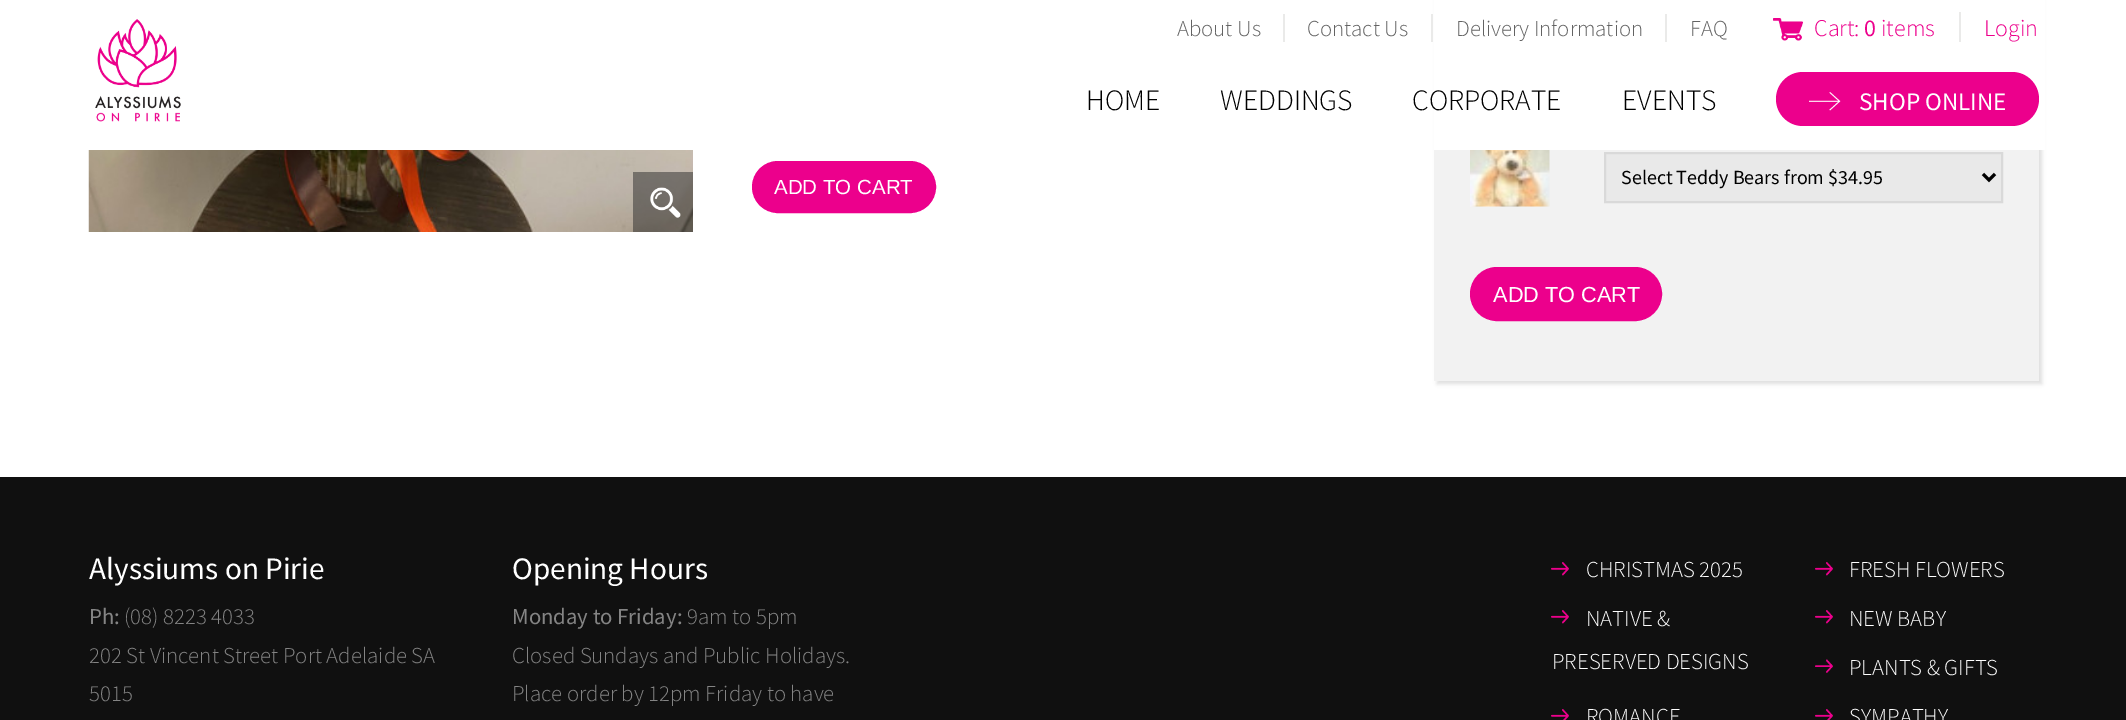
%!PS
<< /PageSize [2126 720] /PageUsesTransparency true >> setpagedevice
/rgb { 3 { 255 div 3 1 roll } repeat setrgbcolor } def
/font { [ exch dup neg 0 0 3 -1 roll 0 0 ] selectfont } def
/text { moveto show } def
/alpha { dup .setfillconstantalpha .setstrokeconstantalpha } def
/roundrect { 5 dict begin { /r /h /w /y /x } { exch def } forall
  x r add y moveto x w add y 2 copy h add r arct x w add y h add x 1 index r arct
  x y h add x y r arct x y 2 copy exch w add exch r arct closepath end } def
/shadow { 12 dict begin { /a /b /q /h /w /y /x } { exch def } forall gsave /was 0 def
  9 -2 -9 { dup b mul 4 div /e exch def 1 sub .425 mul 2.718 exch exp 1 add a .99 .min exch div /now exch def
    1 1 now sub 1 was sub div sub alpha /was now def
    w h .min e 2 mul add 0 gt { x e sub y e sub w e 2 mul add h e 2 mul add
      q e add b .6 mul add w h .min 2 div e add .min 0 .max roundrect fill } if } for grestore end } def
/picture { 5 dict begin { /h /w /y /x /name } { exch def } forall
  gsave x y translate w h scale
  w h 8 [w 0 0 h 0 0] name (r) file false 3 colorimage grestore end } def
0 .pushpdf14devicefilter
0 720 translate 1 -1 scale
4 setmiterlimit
255 255 255 rgb
0 0 2126 720 rectfill
222 222 222 rgb
1437 -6 605 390 0 2 1 shadow
255 255 255 rgb
1434 0 611 150 rectfill
234 234 233 rgb
1283 14 2 28 rectfill
1431 14 2 28 rectfill
1665 14 2 28 rectfill
(img_01.rgb) 1773 18 30 23 picture
1959 12 2 30 rectfill
(img_02.rgb) 95 19 86 103 picture
236 0 140 rgb
1776 72 263 54 27 roundrect fill
(img_03.rgb) 1809 92 32 19 picture
(img_04.rgb) 88 150 605 82 picture
(img_05.rgb) 633 172 60 60 picture
756 165 176 44 22 roundrect gsave fill grestore
8 setlinewidth
stroke
242 242 242 rgb
1434 150 605 231 rectfill
(img_06.rgb) 1470 150 80 57 picture
233 233 233 rgb
1605 153 moveto 397 0 rlineto 0 49 rlineto -397 0 rlineto closepath gsave fill grestore
217 217 217 rgb
2 setlinewidth
stroke
0 0 0 rgb
3 setlinewidth
1983 174 moveto 6 6 rlineto 6 -6 rlineto stroke
236 0 140 rgb
1474 271 184 46 23 roundrect gsave fill grestore
8 setlinewidth
stroke
16 16 16 rgb
0 477 2126 243 rectfill
(img_07.rgb) 1551 562 18 14 picture
(img_08.rgb) 1815 562 18 14 picture
(img_07.rgb) 1551 610 18 14 picture
(img_08.rgb) 1815 610 18 14 picture
(img_09.rgb) 1815 659 18 14 picture
(img_10.rgb) 1551 709 18 11 picture
(img_11.rgb) 1815 709 18 11 picture
/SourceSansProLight-Light 22.75 font
99 99 99 rgb
(About Us) 1177 36 text
(Contact Us) 1307 36 text
(Delivery Information) 1456 36 text
(FAQ) 1690 36 text
/SourceSansProLight-Light 24 font
236 0 140 rgb
(Cart:) 1814 36 text
/SourceSansPro-Regular 24 font
(0) 1864 36 text
/SourceSansProLight-Light 24 font
(items) 1881 36 text
(Login) 1984 36 text
/SourceSansProLight-Light 29.5 font
0 0 0 rgb
(HOME) 1086 110 text
(WEDDINGS) 1220 110 text
(CORPORATE) 1412 110 text
(EVENTS) 1622 110 text
/SourceSansPro-Regular 25.25 font
255 255 255 rgb
(SHOP ONLINE) 1859 110 text
/LiberationSans-Regular 20.5 font
(ADD TO CART) 774 194 text
/SourceSansPro-Regular 20 font
0 0 0 rgb
(Select Teddy Bears from $34.95) 1621 184 text
/LiberationSans-Regular 21.75 font
255 255 255 rgb
(ADD TO CART) 1493 302 text
/SourceSansPro-Regular 31.25 font
(Alyssiums on Pirie) 89 579 text
/SourceSansPro-Regular 22.75 font
132 132 132 rgb
(Ph:) 89 624 text
/SourceSansProLight-Light 22.75 font
(\(08\) 8223 4033) 124 624 text
(202 St Vincent Street Port Adelaide SA) 89 663 text
(5015) 89 701 text
/SourceSansPro-Regular 31.25 font
255 255 255 rgb
(Opening Hours) 512 579 text
/SourceSansPro-Regular 22.75 font
132 132 132 rgb
(Monday to Friday:) 512 624 text
/SourceSansProLight-Light 22.75 font
(9am to 5pm) 687 624 text
(Closed Sundays and Public Holidays.) 512 663 text
(Place order by 12pm Friday to have) 512 701 text
255 255 255 rgb
(CHRISTMAS 2025) 1586 577 text
(FRESH FLOWERS) 1849 577 text
(NATIVE &) 1586 626 text
(PRESERVED DESIGNS) 1552 669 text
(NEW BABY) 1849 626 text
(PLANTS & GIFTS) 1849 675 text
(ROMANCE) 1586 724 text
(SYMPATHY) 1849 724 text
.poppdf14devicefilter showpage
